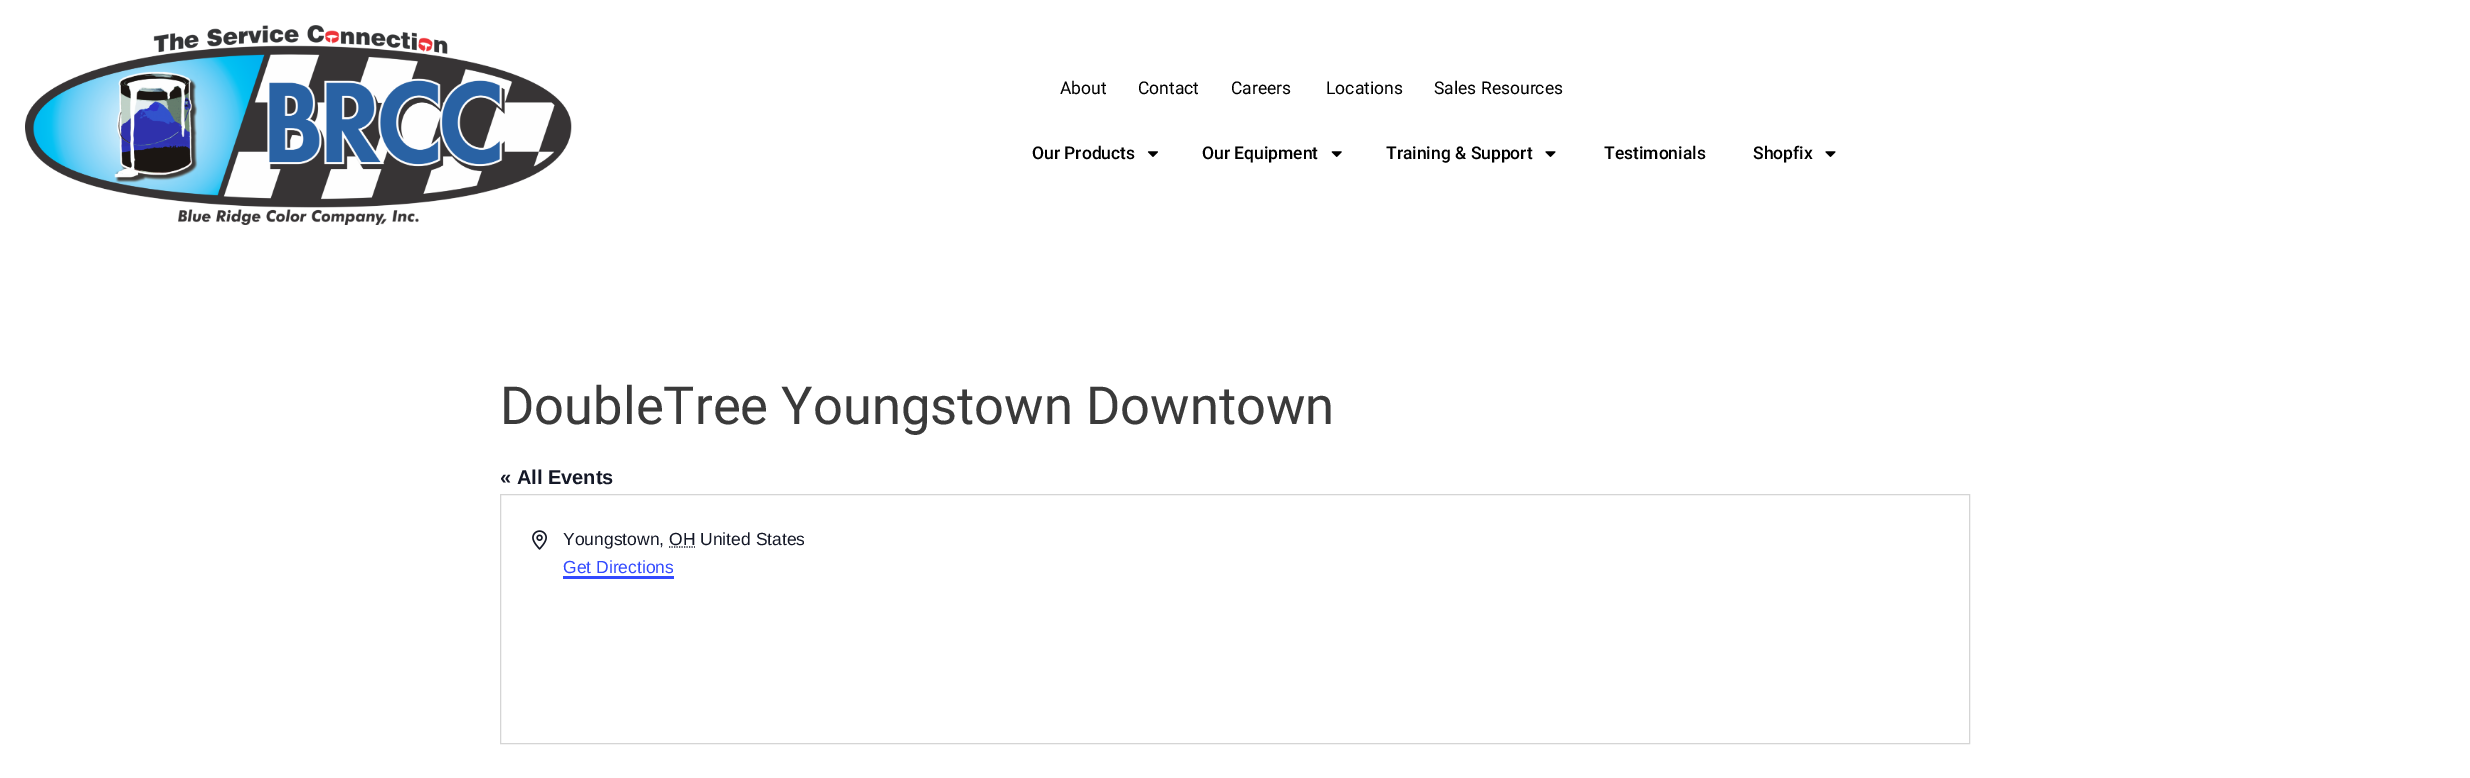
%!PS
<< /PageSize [2470 778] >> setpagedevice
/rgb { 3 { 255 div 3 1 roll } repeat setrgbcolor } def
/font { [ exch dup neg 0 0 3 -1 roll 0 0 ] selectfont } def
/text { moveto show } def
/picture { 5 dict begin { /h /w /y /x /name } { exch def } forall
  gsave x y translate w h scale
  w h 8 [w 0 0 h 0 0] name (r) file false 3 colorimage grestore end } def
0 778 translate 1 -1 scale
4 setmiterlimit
255 255 255 rgb
0 0 2470 778 rectfill
(img_01.rgb) 25 25 547 200 picture
(img_02.rgb) 1147 151 11 6 picture
(img_03.rgb) 1331 151 11 6 picture
(img_04.rgb) 1545 151 11 6 picture
(img_04.rgb) 1825 151 11 6 picture
213 213 213 rgb
500.5 494.5 1469 249 rectstroke
(img_05.rgb) 532 530 15 20 picture
20 24 39 rgb
1.2 setlinewidth
[1.25 1.25] 0 setdash
669 547 moveto 26 0 rlineto stroke
51 74 255 rgb
563 576 111 3 rectfill
/Roboto-Regular 17.5 font
0 0 0 rgb
(About) 1060 94 text
(Contact) 1138 94 text
(Careers) 1231 94 text
(Locations) 1326 94 text
(Sales Resources) 1434 94 text
/Roboto-Medium 17.5 font
(Our Products) 1032 159 text
(Our Equipment) 1202 159 text
(Training & Support) 1386 159 text
(Testimonials) 1604 159 text
(Shopfix) 1753 159 text
/Roboto-Regular 52.5 font
58 58 58 rgb
(DoubleTree Youngstown Downtown) 500 424 text
/LiberationSans-Bold 20 font
20 24 39 rgb
(« All Events) 500 484 text
/LiberationSans-Regular 17.5 font
(Youngstown, OH United States) 563 545 text
51 74 255 rgb
(Get Directions) 563 573 text
showpage
